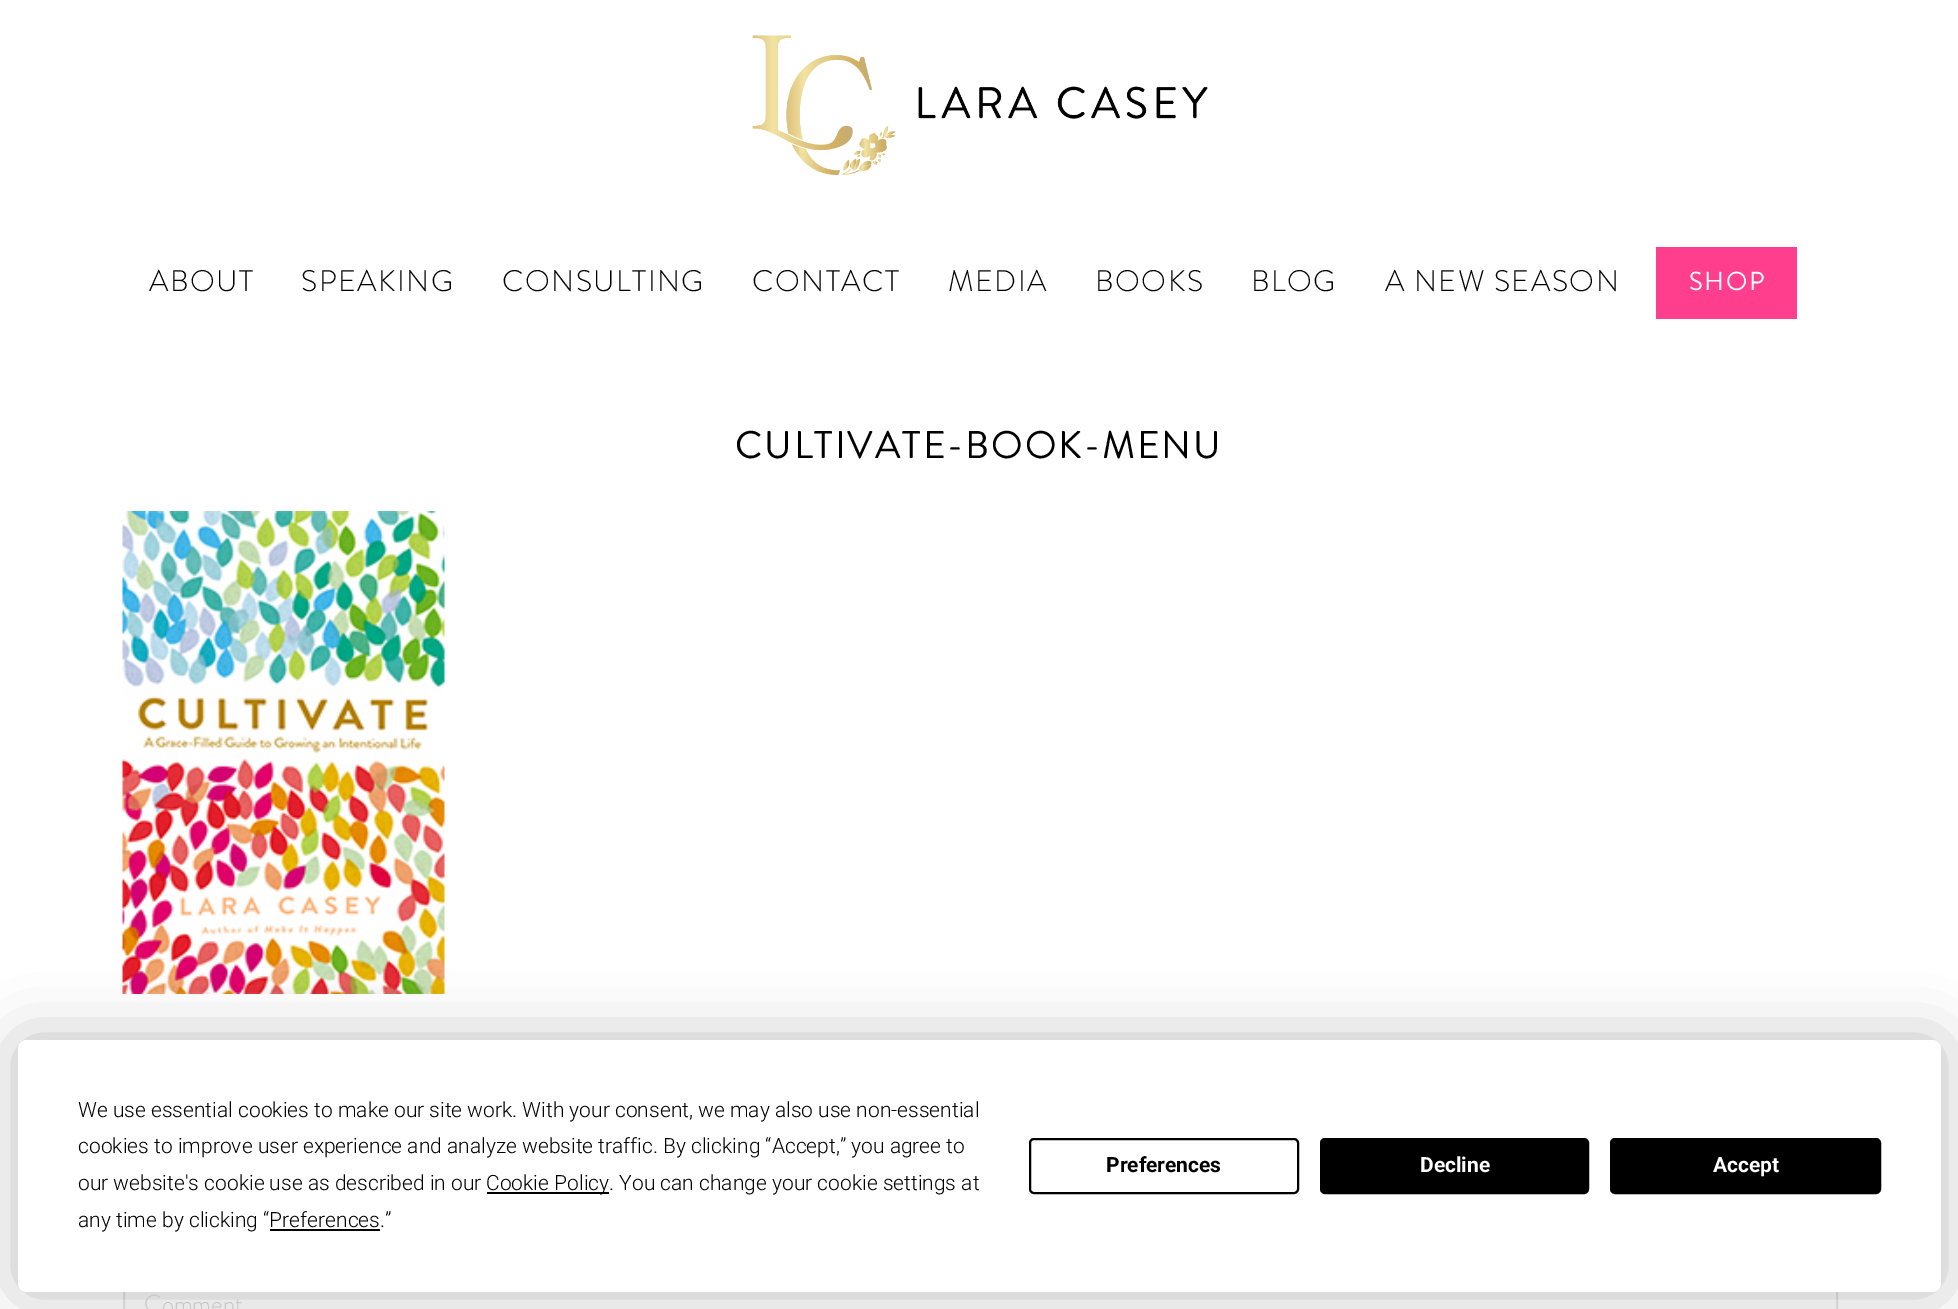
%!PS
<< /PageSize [1958 1309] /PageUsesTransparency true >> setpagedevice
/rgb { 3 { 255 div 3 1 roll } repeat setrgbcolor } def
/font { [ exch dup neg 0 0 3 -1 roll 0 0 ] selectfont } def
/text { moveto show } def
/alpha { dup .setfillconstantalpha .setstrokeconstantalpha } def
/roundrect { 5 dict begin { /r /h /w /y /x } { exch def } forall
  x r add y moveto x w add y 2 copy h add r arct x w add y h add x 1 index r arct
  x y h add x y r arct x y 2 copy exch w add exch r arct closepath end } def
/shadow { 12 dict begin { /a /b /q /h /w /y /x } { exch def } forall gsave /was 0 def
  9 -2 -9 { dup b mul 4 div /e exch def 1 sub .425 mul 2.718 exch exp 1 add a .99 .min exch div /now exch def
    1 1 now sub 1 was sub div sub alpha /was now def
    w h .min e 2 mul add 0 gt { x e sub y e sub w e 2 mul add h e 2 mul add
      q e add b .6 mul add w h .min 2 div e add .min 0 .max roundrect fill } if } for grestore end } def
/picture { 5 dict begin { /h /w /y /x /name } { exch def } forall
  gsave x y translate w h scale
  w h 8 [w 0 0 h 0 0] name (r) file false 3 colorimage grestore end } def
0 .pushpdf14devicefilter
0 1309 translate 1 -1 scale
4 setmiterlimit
255 255 255 rgb
0 0 1958 1309 rectfill
(img_01.rgb) 752 35 456 140 picture
255 63 141 rgb
1656 247 141 72 rectfill
(img_02.rgb) 122 511 323 483 picture
252 252 252 rgb
125 1292 1711 17 rectfill
230 230 230 rgb
2 setlinewidth
124 1275 1713 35 rectstroke
0 0 0 rgb
18 1040 1923 252 9 30.5 0.25 shadow
255 255 255 rgb
18 1040 1923 252 9 roundrect fill
0 0 0 rgb
487 1192 122 2 rectfill
270 1229 110 2 rectfill
1030 1139 268 54 4 roundrect stroke
1321 1139 267 54 4 roundrect gsave fill grestore
stroke
1611 1139 269 54 4 roundrect gsave fill grestore
stroke
/BrandonGrotesque-Light 29.75 font
149 291 moveto 1.5 0 (ABOUT) ashow
301 291 moveto 1.5 0 (SPEAKING) ashow
502 291 moveto 1.5 0 (CONSULTING) ashow
752 291 moveto 1.5 0 (CONTACT) ashow
948 291 moveto 1.5 0 (MEDIA) ashow
1095 291 moveto 1.5 0 (BOOKS) ashow
1251 291 moveto 1.5 0 (BLOG) ashow
1385 291 moveto 1.5 0 (A NEW SEASON) ashow
/BrandonGrotesque-Regular 26 font
255 255 255 rgb
1689 290 moveto 1.5 0 (SHOP) ashow
/BrandonGrotesque-Regular 38.5 font
0 0 0 rgb
735 458 moveto 1.9 0 (CULTIVATE-BOOK-MENU) ashow
/BrandonGrotesque-Light 24.5 font
198 198 198 rgb
(Comment) 144 1312 text
/Roboto-Light 21 font
0 0 0 rgb
(We use essential cookies to make our site work. With your consent, we may also use non-essential) 78 1117 text
(cookies to improve user experience and analyze website traffic. By clicking “Accept,” you agree to) 78 1153 text
(our website's cookie use as described in our) 78 1190 text
(Cookie Policy. You can change your cookie settings at) 486 1190 text
(any time by clicking “Preferences.”) 78 1227 text
/Roboto-Bold 21 font
(Preferences) 1106 1172 text
255 255 255 rgb
(Decline) 1420 1172 text
(Accept) 1713 1172 text
.poppdf14devicefilter showpage
